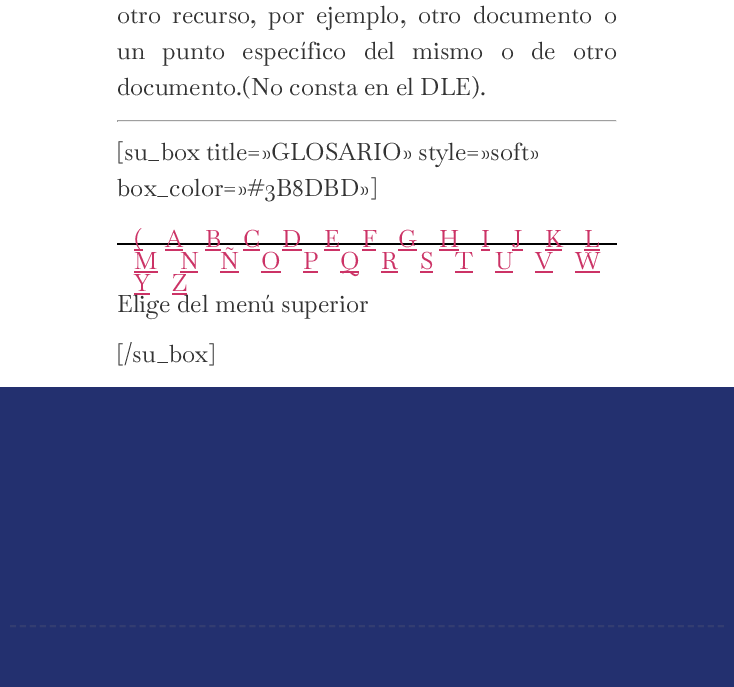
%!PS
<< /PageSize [734 687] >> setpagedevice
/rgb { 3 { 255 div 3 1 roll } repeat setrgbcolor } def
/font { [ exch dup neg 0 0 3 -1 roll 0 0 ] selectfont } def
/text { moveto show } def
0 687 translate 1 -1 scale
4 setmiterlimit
255 255 255 rgb
0 0 734 687 rectfill
159 159 159 rgb
117 120 500 1 rectfill
238 238 238 rgb
616 120 1 2 rectfill
117 121 500 1 rectfill
159 159 159 rgb
117 120 1 2 rectfill
0 0 0 rgb
117 243 500 2 rectfill
204 51 102 rgb
134 249 9 2 rectfill
165 249 18 2 rectfill
205 249 16 2 rectfill
243 249 17 2 rectfill
282 249 20 2 rectfill
324 249 16 2 rectfill
362 249 14 2 rectfill
398 249 19 2 rectfill
439 249 20 2 rectfill
481 249 9 2 rectfill
512 249 11 2 rectfill
545 249 17 2 rectfill
584 249 16 2 rectfill
134 271 24 2 rectfill
180 271 18 2 rectfill
220 271 19 2 rectfill
261 271 20 2 rectfill
303 271 15 2 rectfill
340 271 19 2 rectfill
381 271 17 2 rectfill
420 271 13 2 rectfill
455 271 18 2 rectfill
495 271 18 2 rectfill
535 271 18 2 rectfill
575 271 25 2 rectfill
134 293 16 2 rectfill
172 293 15 2 rectfill
35 48 111 rgb
0 387 734 300 rectfill
51 61 113 rgb
2 setlinewidth
[6 3.97] 0 setdash
10 626 moveto 714 0 rlineto stroke
/Baskervville-Regular 24 font
51 51 51 rgb
117 23 moveto 5 0 32 (otro recurso, por ejemplo, otro documento o) widthshow
117 59 moveto 11 0 32 (un punto específico del mismo o de otro) widthshow
(documento.\(No consta en el DLE\).) 117 95 text
([su_box title=»GLOSARIO» style=»soft») 117 160 text
(box_color=»#3B8DBD»]) 117 196 text
204 51 102 rgb
(\() 134 247 text
(A) 165 247 text
(B) 205 247 text
(C) 243 247 text
(D) 282 247 text
(E) 324 247 text
(F) 362 247 text
(G) 398 247 text
(H) 439 247 text
(I) 481 247 text
(J) 512 247 text
(K) 545 247 text
(L) 584 247 text
(M) 134 269 text
(N) 180 269 text
(Ñ) 220 269 text
(O) 261 269 text
(P) 303 269 text
(Q) 340 269 text
(R) 381 269 text
(S) 420 269 text
(T) 455 269 text
(U) 495 269 text
(V) 535 269 text
(W) 575 269 text
(Y) 134 291 text
(Z) 172 291 text
51 51 51 rgb
(Elige del menú superior) 117 312 text
([/su_box]) 117 362 text
showpage
